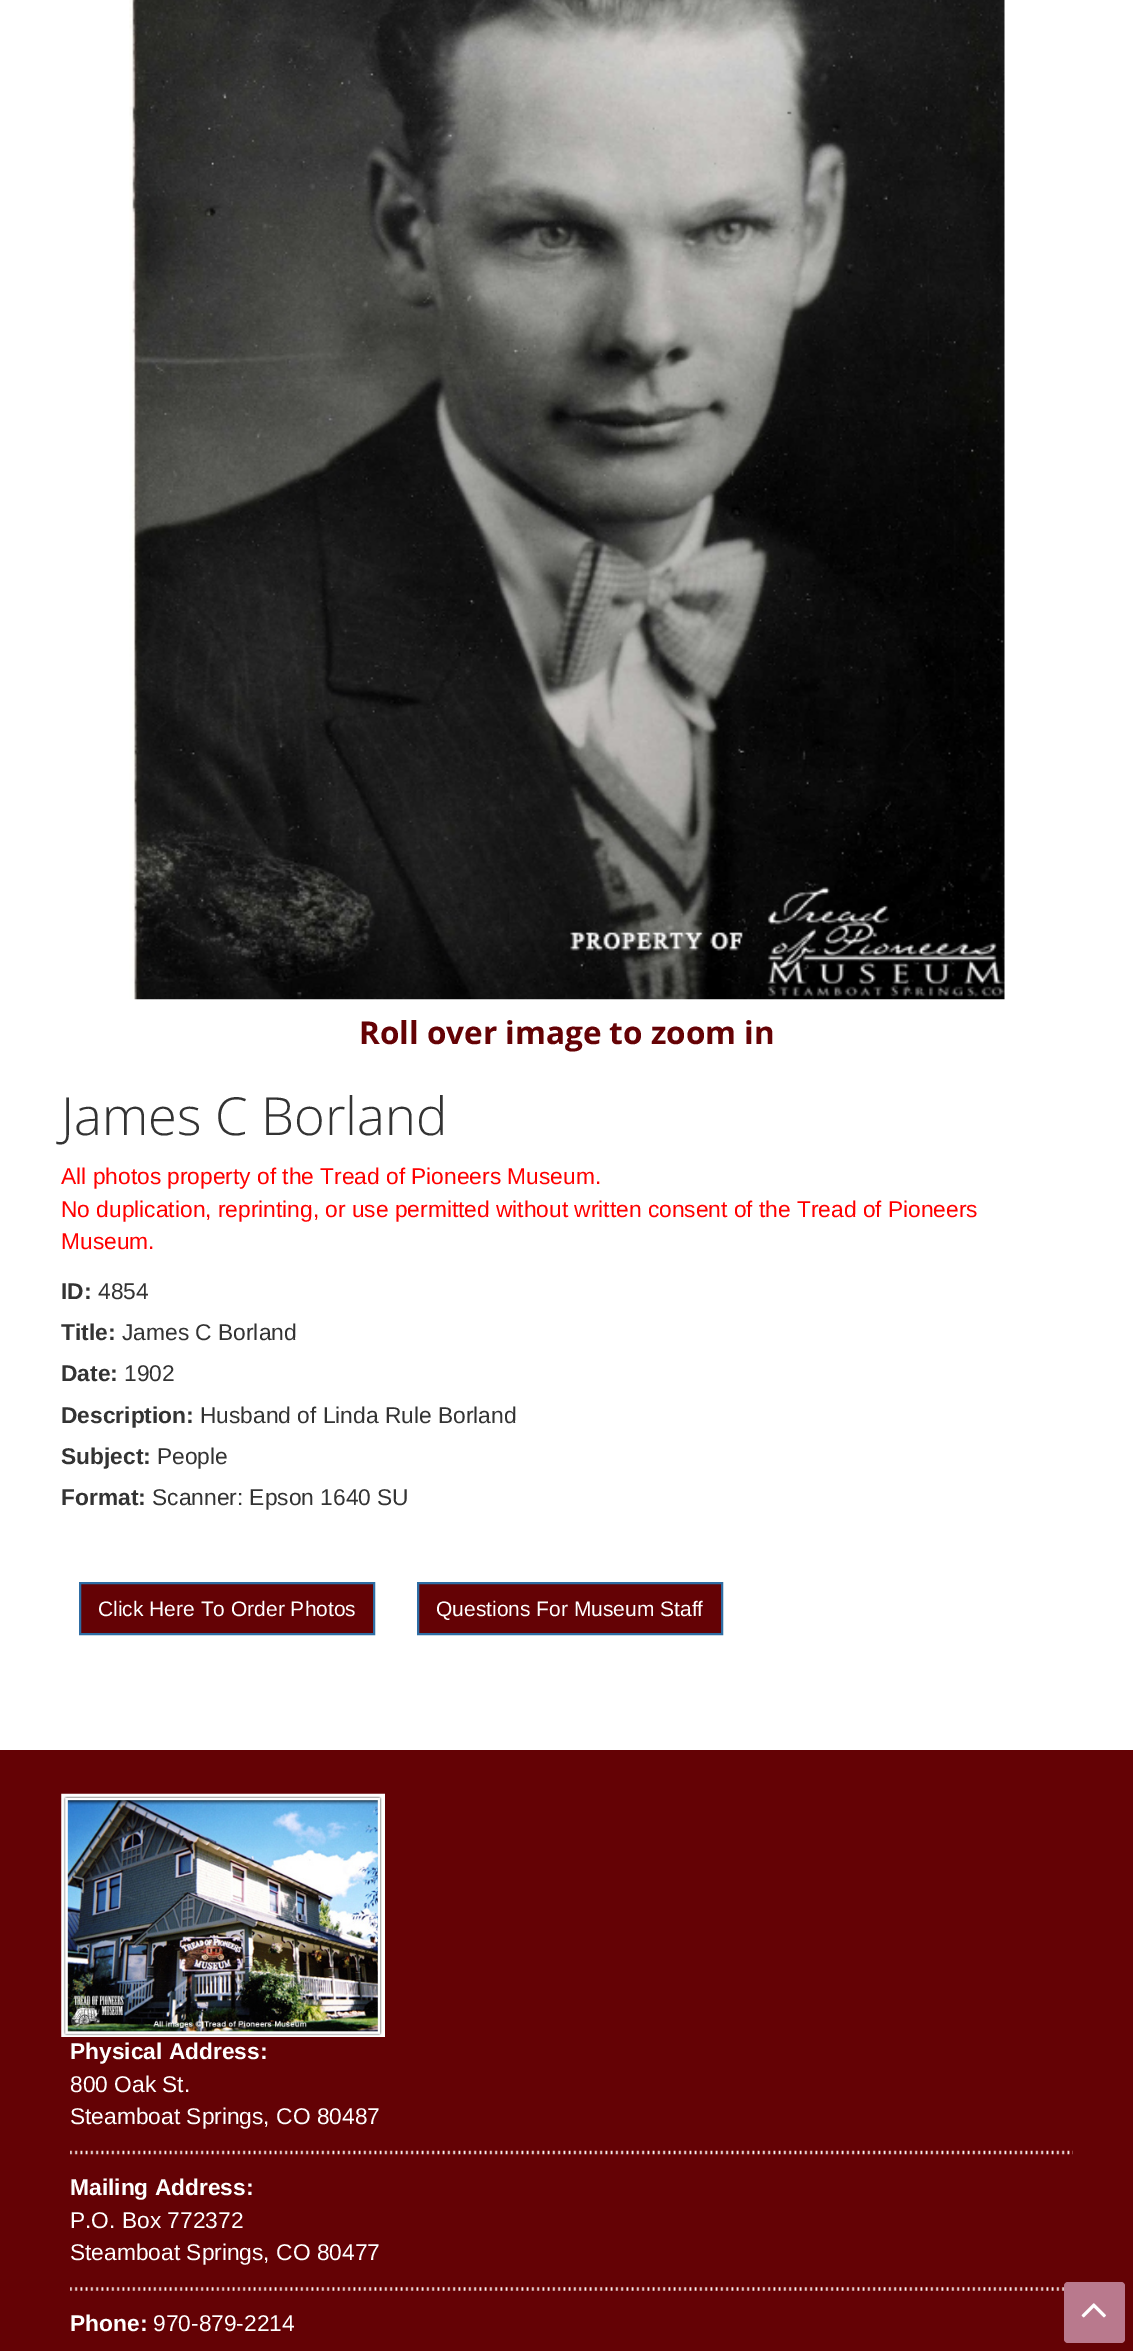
%!PS
<< /PageSize [1133 2351] >> setpagedevice
/rgb { 3 { 255 div 3 1 roll } repeat setrgbcolor } def
/font { [ exch dup neg 0 0 3 -1 roll 0 0 ] selectfont } def
/text { moveto show } def
/roundrect { 5 dict begin { /r /h /w /y /x } { exch def } forall
  x r add y moveto x w add y 2 copy h add r arct x w add y h add x 1 index r arct
  x y h add x y r arct x y 2 copy exch w add exch r arct closepath end } def
/picture { 5 dict begin { /h /w /y /x /name } { exch def } forall
  gsave x y translate w h scale
  w h 8 [w 0 0 h 0 0] name (r) file false 3 colorimage grestore end } def
0 2351 translate 1 -1 scale
4 setmiterlimit
255 255 255 rgb
0 0 1133 2351 rectfill
(img_01.rgb) 129 0 876 1000 picture
100 2 5 rgb
80 1583 moveto 294 0 rlineto 0 51 rlineto -294 0 rlineto closepath gsave fill grestore
46 109 164 rgb
2 setlinewidth
stroke
100 2 5 rgb
418 1583 moveto 304 0 rlineto 0 51 rlineto -304 0 rlineto closepath gsave fill grestore
46 109 164 rgb
stroke
100 2 5 rgb
0 1750 1133 601 rectfill
(img_02.rgb) 61 1793 324 244 picture
(img_03.rgb) 70 2150 1003 5 picture
(img_04.rgb) 70 2287 994 4 picture
185 121 141 rgb
1064 2282 61 61 4 roundrect fill
(img_05.rgb) 1081 2303 25 15 picture
/OpenSans-Bold 31.5 font
101 2 5 rgb
(Roll over image to zoom in) 359 1044 text
/OpenSans-Light 52.5 font
51 51 51 rgb
(James C Borland) 61 1135 text
/LiberationSans-Regular 22.75 font
255 0 0 rgb
(All photos property of the Tread of Pioneers Museum.) 61 1184 text
(No duplication, reprinting, or use permitted without written consent of the Tread of Pioneers) 61 1217 text
(Museum.) 61 1249 text
/LiberationSans-Bold 22.75 font
51 51 51 rgb
(ID:) 61 1299 text
/LiberationSans-Regular 22.75 font
(4854) 98 1299 text
/LiberationSans-Bold 22.75 font
(Title:) 61 1340 text
/LiberationSans-Regular 22.75 font
(James C Borland) 122 1340 text
/LiberationSans-Bold 22.75 font
(Date:) 61 1381 text
/LiberationSans-Regular 22.75 font
(1902) 124 1381 text
/LiberationSans-Bold 22.75 font
(Description:) 61 1423 text
/LiberationSans-Regular 22.75 font
(Husband of Linda Rule Borland) 200 1423 text
/LiberationSans-Bold 22.75 font
(Subject:) 61 1464 text
/LiberationSans-Regular 22.75 font
(People) 157 1464 text
/LiberationSans-Bold 22.75 font
(Format:) 61 1505 text
/LiberationSans-Regular 22.75 font
(Scanner: Epson 1640 SU) 152 1505 text
/LiberationSans-Regular 21 font
255 255 255 rgb
(Click Here To Order Photos) 98 1616 text
(Questions For Museum Staff) 436 1616 text
/LiberationSans-Bold 22.75 font
(Physical Address:) 70 2059 text
/LiberationSans-Regular 22.75 font
(800 Oak St.) 70 2092 text
(Steamboat Springs, CO 80487) 70 2124 text
/LiberationSans-Bold 22.75 font
(Mailing Address:) 70 2195 text
/LiberationSans-Regular 22.75 font
(P.O. Box 772372) 70 2228 text
(Steamboat Springs, CO 80477) 70 2260 text
/LiberationSans-Bold 22.75 font
(Phone:) 70 2331 text
/LiberationSans-Regular 22.75 font
(970-879-2214) 153 2331 text
showpage
